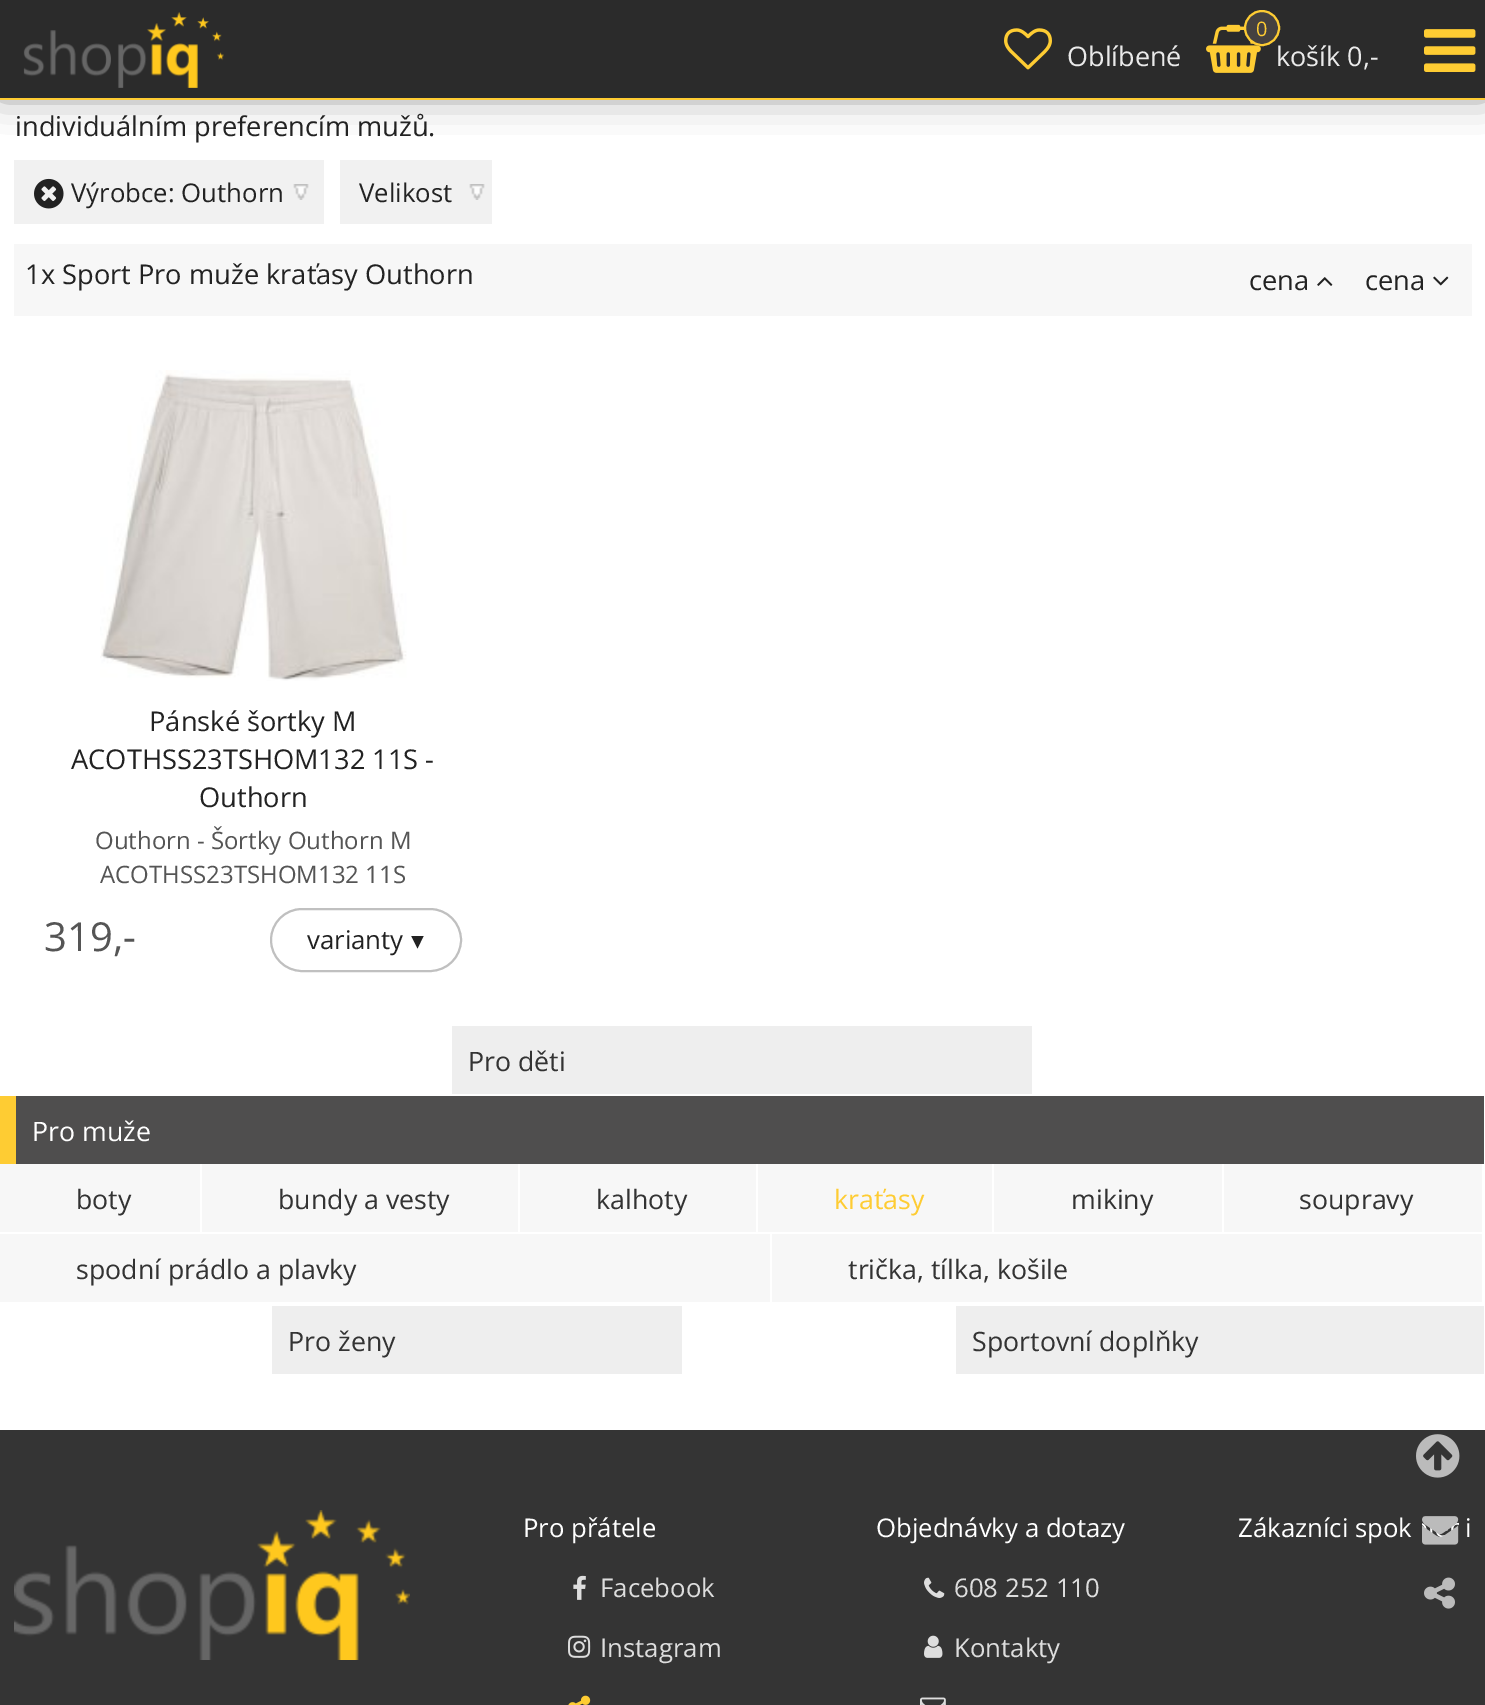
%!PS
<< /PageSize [1485 1705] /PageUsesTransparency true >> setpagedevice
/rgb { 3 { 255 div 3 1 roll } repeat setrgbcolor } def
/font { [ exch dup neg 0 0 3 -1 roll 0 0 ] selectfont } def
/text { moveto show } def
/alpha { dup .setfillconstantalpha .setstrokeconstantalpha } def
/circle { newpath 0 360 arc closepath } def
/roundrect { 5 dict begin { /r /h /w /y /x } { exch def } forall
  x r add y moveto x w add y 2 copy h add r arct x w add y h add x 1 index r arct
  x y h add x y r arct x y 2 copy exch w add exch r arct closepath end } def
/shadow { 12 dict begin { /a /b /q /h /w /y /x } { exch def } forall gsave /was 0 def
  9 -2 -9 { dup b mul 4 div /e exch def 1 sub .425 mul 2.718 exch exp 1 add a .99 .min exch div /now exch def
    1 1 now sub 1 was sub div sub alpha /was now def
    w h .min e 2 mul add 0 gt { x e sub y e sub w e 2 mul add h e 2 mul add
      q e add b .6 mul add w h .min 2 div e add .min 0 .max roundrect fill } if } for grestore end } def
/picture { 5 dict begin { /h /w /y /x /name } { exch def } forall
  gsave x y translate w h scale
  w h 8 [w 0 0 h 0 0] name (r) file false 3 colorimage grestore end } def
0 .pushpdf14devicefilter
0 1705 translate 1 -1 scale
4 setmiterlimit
255 255 255 rgb
0 0 1485 1705 rectfill
102 102 102 rgb
0 -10 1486 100 0 20 1 shadow
43 43 43 rgb
0 0 1485 98 rectfill
254 204 51 rgb
0 98 1485 2 rectfill
(img_01.rgb) 23 12 201 76 picture
(img_02.rgb) 1004 28 48 42 picture
(img_03.rgb) 1206 24 55 49 picture
(img_04.rgb) 1424 29 52 43 picture
241 241 241 rgb
14 160 310 64 rectfill
(img_05.rgb) 293 184 16 16 picture
(img_06.rgb) 34 178 30 31 picture
340 160 152 64 rectfill
(img_05.rgb) 469 184 16 16 picture
247 247 247 rgb
14 244 1458 72 rectfill
(img_07.rgb) 1317 277 16 9 picture
(img_08.rgb) 1433 276 16 10 picture
(img_09.rgb) 100 370 307 311 picture
192 192 192 rgb
2 setlinewidth
271 909 190 62 31 roundrect stroke
238 238 238 rgb
452 1026 580 68 rectfill
79 78 78 rgb
16 1096 1468 68 rectfill
254 204 51 rgb
0 1096 16 68 rectfill
247 247 247 rgb
0 1164 200 68 rectfill
202 1164 316 68 rectfill
520 1164 236 68 rectfill
758 1164 234 68 rectfill
994 1164 228 68 rectfill
1224 1164 258 68 rectfill
0 1234 770 68 rectfill
772 1234 710 68 rectfill
238 238 238 rgb
272 1306 410 68 rectfill
956 1306 528 68 rectfill
52 52 52 rgb
0 1430 1485 275 rectfill
(img_10.rgb) 1416 1434 44 44 picture
(img_11.rgb) 1422 1516 37 29 picture
(img_12.rgb) 1424 1577 31 32 picture
(img_13.rgb) 14 1510 396 150 picture
(img_14.rgb) 573 1575 13 25 picture
(img_15.rgb) 568 1635 23 23 picture
(img_16.rgb) 568 1695 23 10 picture
(img_17.rgb) 924 1577 21 21 picture
(img_18.rgb) 924 1635 19 23 picture
(img_19.rgb) 920 1697 26 8 picture
/OpenSans-Regular 27 font
234 234 234 rgb
(Oblíbené) 1067 66 text
(košík 0,-) 1276 66 text
69 65 64 rgb
1262 28 17 circle gsave fill grestore
254 204 51 rgb
stroke
/OpenSans-Regular 20 font
(0) 1256 36 text
/OpenSans-Regular 27.25 font
34 34 34 rgb
(individuálním preferencím mužů.) 15 136 text
/OpenSans-Regular 25.75 font
(Výrobce: Outhorn) 71 202 text
(Velikost) 359 202 text
/OpenSans-Regular 27.25 font
(1x Sport Pro muže kraťasy Outhorn) 25 284 text
(cena) 1249 290 text
(cena) 1365 290 text
(Pánské šortky M) 149 731 text
(ACOTHSS23TSHOM132 11S -) 71 769 text
(Outhorn) 199 807 text
/OpenSans-Regular 24 font
85 85 85 rgb
(Outhorn - Šortky Outhorn M) 95 849 text
(ACOTHSS23TSHOM132 11S) 100 883 text
/OpenSans-Regular 40 font
(319,-) 44 951 text
/OpenSans-Regular 25.75 font
34 34 34 rgb
(varianty) 307 949 text
/DejaVuSans-Regular 25.75 font
(▾) 411 949 text
/OpenSans-Regular 26.75 font
51 51 51 rgb
(Pro děti) 468 1071 text
255 255 255 rgb
(Pro muže) 32 1141 text
51 51 51 rgb
(boty) 76 1209 text
(bundy a vesty) 278 1209 text
(kalhoty) 596 1209 text
254 204 51 rgb
(kraťasy) 834 1209 text
51 51 51 rgb
(mikiny) 1071 1209 text
(soupravy) 1299 1209 text
(spodní prádlo a plavky) 76 1279 text
(trička, tílka, košile) 848 1279 text
(Pro ženy) 288 1351 text
(Sportovní doplňky) 972 1351 text
/OpenSans-Regular 25.75 font
255 255 255 rgb
(Pro přátele) 523 1537 text
221 221 221 rgb
(Facebook) 600 1597 text
(Instagram) 600 1657 text
255 255 255 rgb
(Objednávky a dotazy) 876 1537 text
221 221 221 rgb
(608 252 110) 954 1597 text
(Kontakty) 954 1657 text
255 255 255 rgb
(Zákazníci spok) 1238 1537 text
(i) 1465 1537 text
.poppdf14devicefilter showpage
